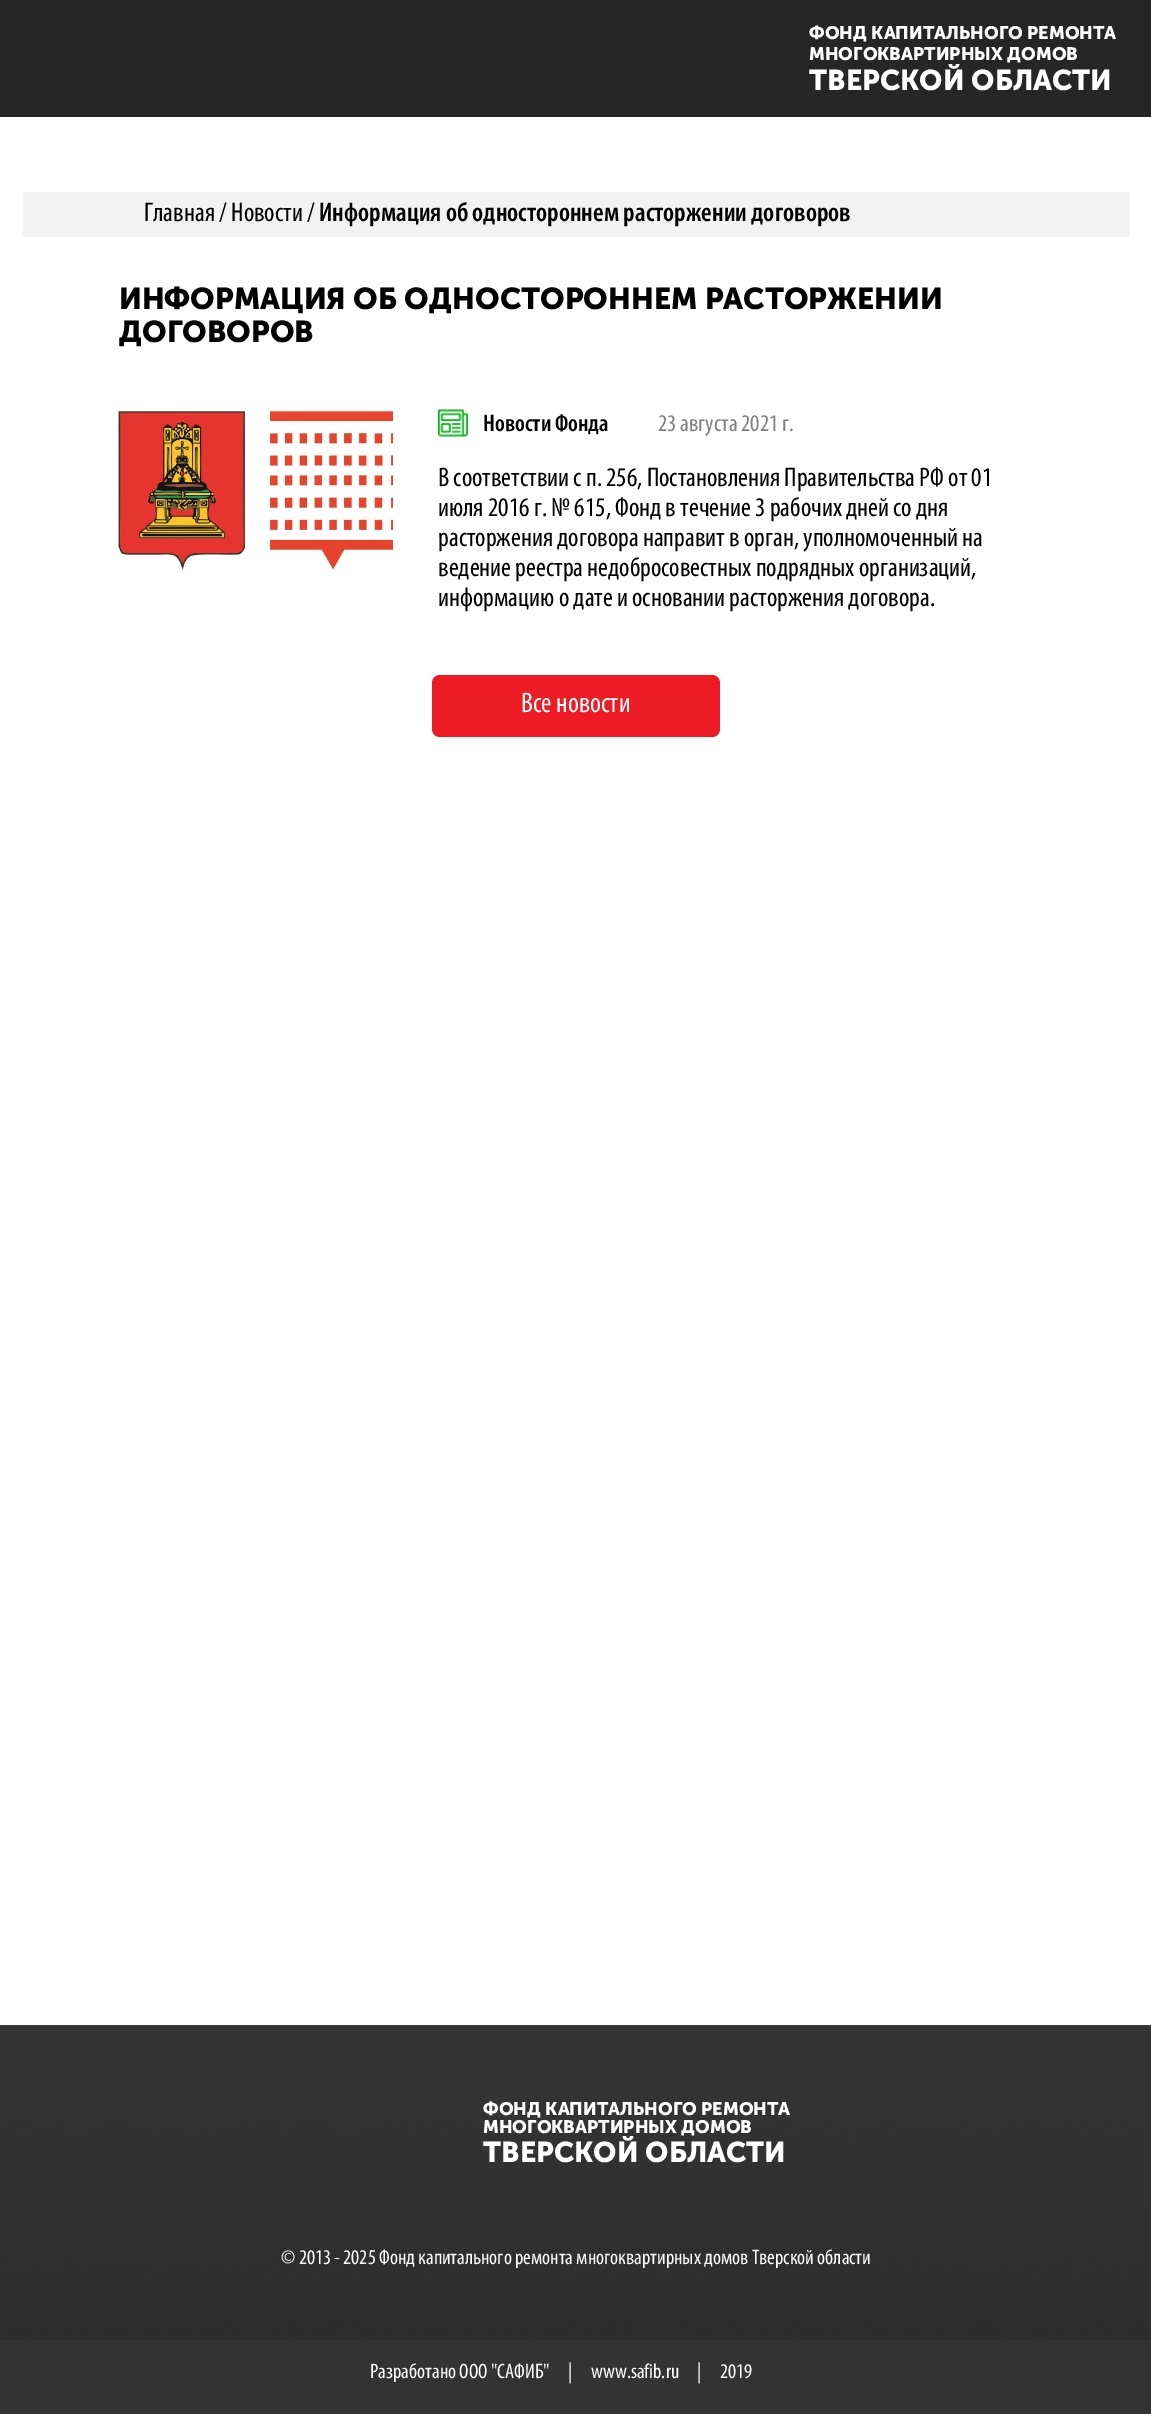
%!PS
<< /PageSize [1151 2414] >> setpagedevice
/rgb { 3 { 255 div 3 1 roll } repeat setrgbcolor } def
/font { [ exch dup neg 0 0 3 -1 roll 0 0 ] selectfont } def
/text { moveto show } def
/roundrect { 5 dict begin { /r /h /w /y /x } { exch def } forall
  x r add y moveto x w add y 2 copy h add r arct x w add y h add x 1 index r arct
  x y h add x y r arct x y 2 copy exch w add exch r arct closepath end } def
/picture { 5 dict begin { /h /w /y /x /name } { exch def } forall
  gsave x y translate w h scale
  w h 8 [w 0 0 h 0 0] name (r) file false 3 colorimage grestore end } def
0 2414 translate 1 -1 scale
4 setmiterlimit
255 255 255 rgb
0 0 1151 2414 rectfill
38 38 38 rgb
0 0 1151 117 rectfill
242 242 242 rgb
23 192 1107 45 rectfill
(img_01.rgb) 118 411 275 158 picture
(img_02.rgb) 438 409 30 28 picture
237 28 36 rgb
432 675 288 62 8 roundrect fill
(img_03.rgb) 0 2025 1151 315 picture
51 51 51 rgb
0 2340 1151 74 rectfill
/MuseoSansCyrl-Bold 18 font
255 255 255 rgb
(ФОНД КАПИТАЛЬНОГО РЕМОНТА) 809 39 text
(МНОГОКВАРТИРНЫХ ДОМОВ) 809 60 text
/MuseoSansCyrl-Bold 28.5 font
(ТВЕРСКОЙ ОБЛАСТИ) 809 90 text
/Myriad-Regular 27 font
0 0 0 rgb
(Главная / Новости /) 144 221 text
/Myriad-SemiBold 27 font
(Информация об одностороннем расторжении договоров) 319 221 text
/MuseoSansCyrl-Bold 30 font
(ИНФОРМАЦИЯ ОБ ОДНОСТОРОННЕМ РАСТОРЖЕНИИ) 119 309 text
(ДОГОВОРОВ) 119 342 text
/Myriad-SemiBold 24 font
(Новости Фонда) 483 431 text
/Myriad-Regular 24 font
128 128 128 rgb
(23 августа 2021 г.) 658 431 text
/Myriad-Regular 27 font
0 0 0 rgb
(В соответствии с п. 256, Постановления Правительства РФ от 01) 438 486 text
(июля 2016 г. № 615, Фонд в течение 3 рабочих дней со дня) 438 516 text
(расторжения договора направит в орган, уполномоченный на) 438 546 text
(ведение реестра недобросовестных подрядных организаций,) 438 576 text
(информацию о дате и основании расторжения договора.) 438 606 text
/Myriad-Regular 28.5 font
255 255 255 rgb
(Все новости) 521 712 text
/MuseoSansCyrl-Bold 18 font
(ФОНД КАПИТАЛЬНОГО РЕМОНТА) 483 2115 text
(МНОГОКВАРТИРНЫХ ДОМОВ) 483 2133 text
/MuseoSansCyrl-Bold 28.5 font
(ТВЕРСКОЙ ОБЛАСТИ) 483 2162 text
/Myriad-Regular 21 font
(© 2013 - 2025 Фонд капитального ремонта многоквартирных домов Тверской области) 281 2264 text
(Разработано ООО "САФИБ") 370 2378 text
(|) 568 2378 text
(www.safib.ru) 591 2378 text
(|) 697 2378 text
(2019) 720 2378 text
showpage
